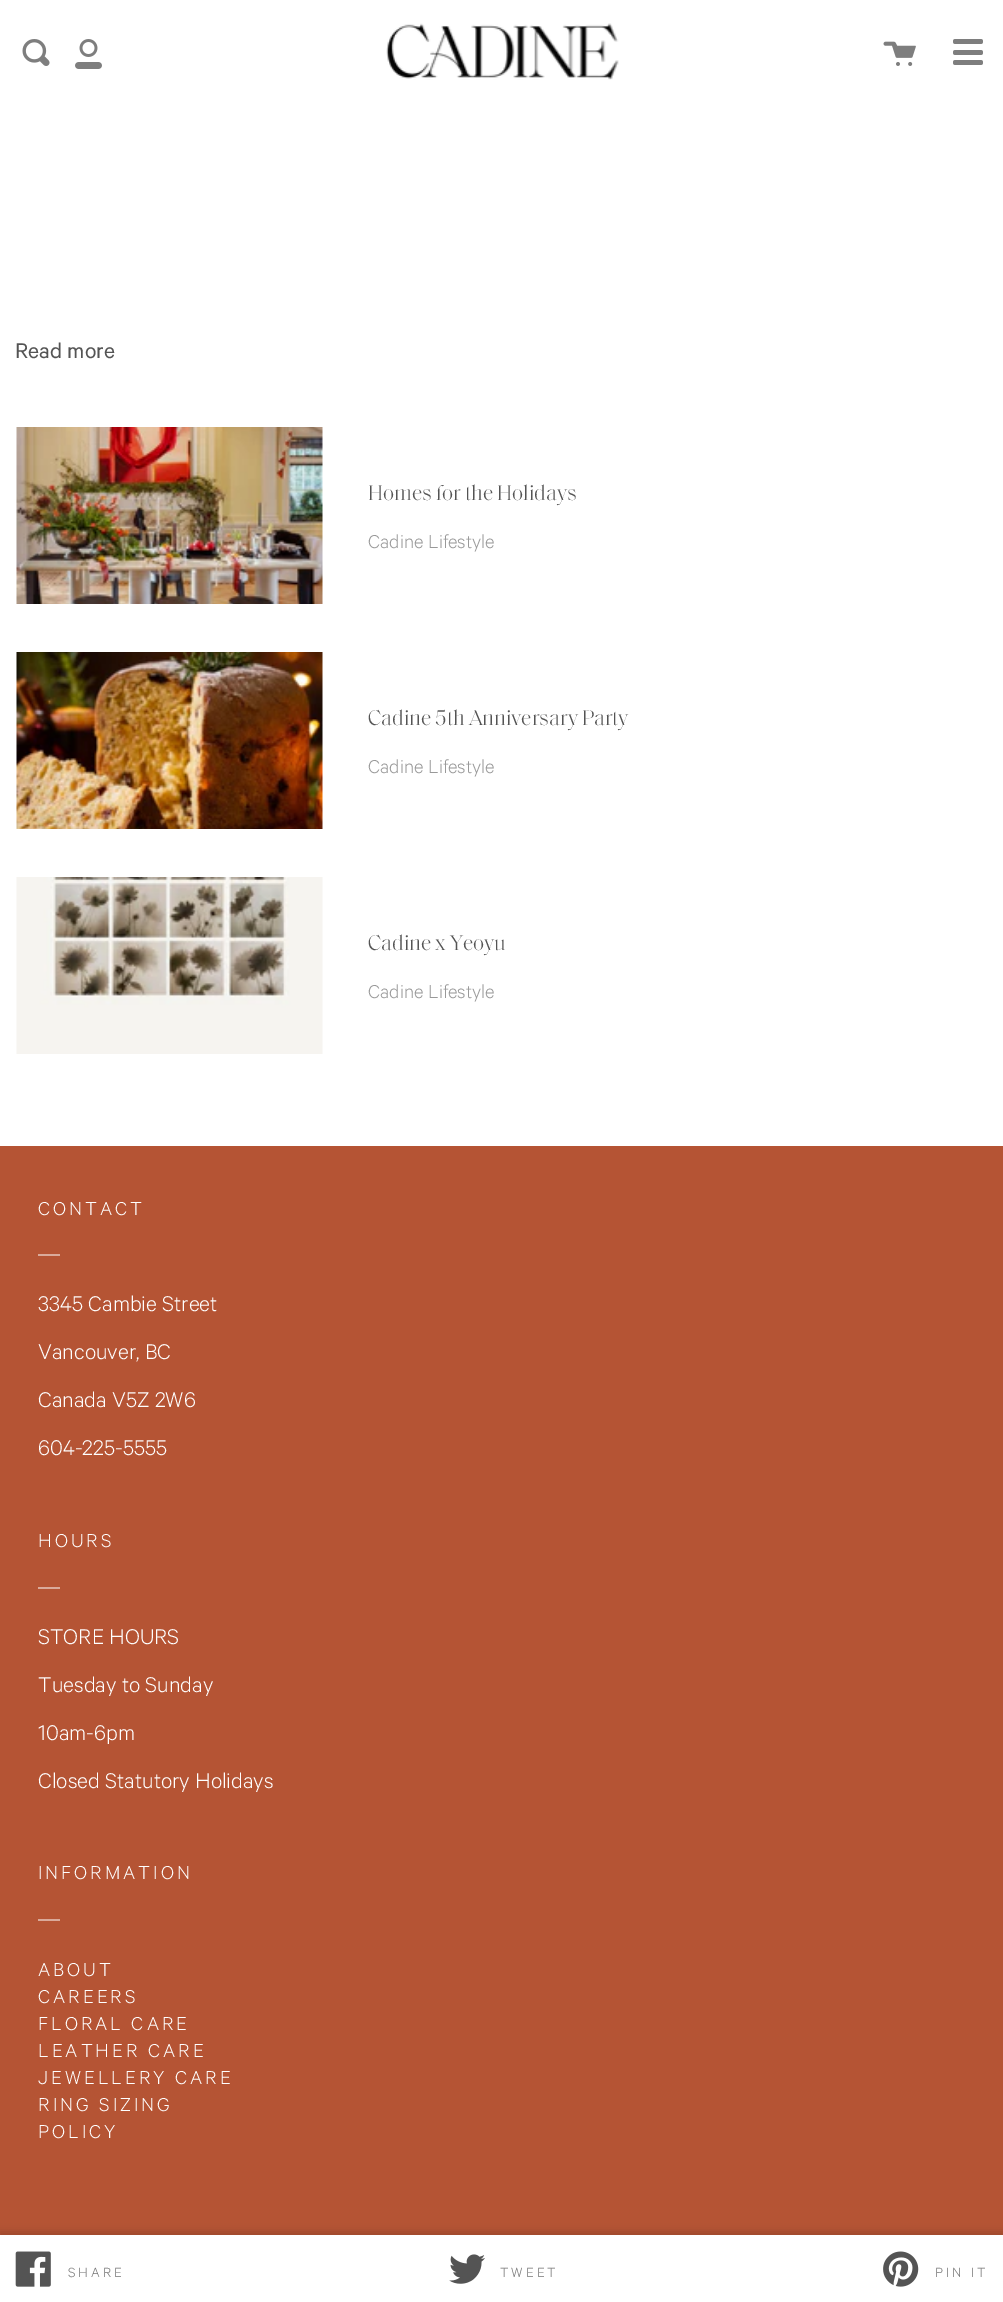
%!PS
<< /PageSize [1003 2302] /PageUsesTransparency true >> setpagedevice
/rgb { 3 { 255 div 3 1 roll } repeat setrgbcolor } def
/font { [ exch dup neg 0 0 3 -1 roll 0 0 ] selectfont } def
/text { moveto show } def
/alpha { dup .setfillconstantalpha .setstrokeconstantalpha } def
/roundrect { 5 dict begin { /r /h /w /y /x } { exch def } forall
  x r add y moveto x w add y 2 copy h add r arct x w add y h add x 1 index r arct
  x y h add x y r arct x y 2 copy exch w add exch r arct closepath end } def
/shadow { 12 dict begin { /a /b /q /h /w /y /x } { exch def } forall gsave /was 0 def
  9 -2 -9 { dup b mul 4 div /e exch def 1 sub .425 mul 2.718 exch exp 1 add a .99 .min exch div /now exch def
    1 1 now sub 1 was sub div sub alpha /was now def
    w h .min e 2 mul add 0 gt { x e sub y e sub w e 2 mul add h e 2 mul add
      q e add b .6 mul add w h .min 2 div e add .min 0 .max roundrect fill } if } for grestore end } def
/picture { 5 dict begin { /h /w /y /x /name } { exch def } forall
  gsave x y translate w h scale
  w h 8 [w 0 0 h 0 0] name (r) file false 3 colorimage grestore end } def
0 .pushpdf14devicefilter
0 2302 translate 1 -1 scale
4 setmiterlimit
255 255 255 rgb
0 0 1003 2302 rectfill
(img_01.rgb) 386 23 233 57 picture
(img_02.rgb) 22 39 28 27 picture
(img_03.rgb) 75 39 27 30 picture
(img_04.rgb) 883 41 33 25 picture
126 126 126 rgb
955.5 39 moveto 22.5 0 rlineto 0 5 rlineto -22.5 0 rlineto -1.5 0 -2.5 -1 -2.5 -2.5 rcurveto 0 -1.5 1 -2.5 2.5 -2.5 rcurveto closepath fill
957 39 moveto 23.5 0 rlineto 1.5 0 2.5 1 2.5 2.5 rcurveto 0 1.5 -1 2.5 -2.5 2.5 rcurveto -23.5 0 rlineto closepath fill
955.5 50 moveto 22.5 0 rlineto 0 5 rlineto -22.5 0 rlineto -1.5 0 -2.5 -1 -2.5 -2.5 rcurveto 0 -1.5 1 -2.5 2.5 -2.5 rcurveto closepath fill
957 50 moveto 23.5 0 rlineto 1.5 0 2.5 1 2.5 2.5 rcurveto 0 1.5 -1 2.5 -2.5 2.5 rcurveto -23.5 0 rlineto closepath fill
955.5 60 moveto 22.5 0 rlineto 0 5 rlineto -22.5 0 rlineto -1.5 0 -2.5 -1 -2.5 -2.5 rcurveto 0 -1.5 1 -2.5 2.5 -2.5 rcurveto closepath fill
957 60 moveto 23.5 0 rlineto 1.5 0 2.5 1 2.5 2.5 rcurveto 0 1.5 -1 2.5 -2.5 2.5 rcurveto -23.5 0 rlineto closepath fill
(img_05.rgb) 16 427 307 177 picture
(img_06.rgb) 16 652 307 177 picture
(img_07.rgb) 16 877 307 177 picture
181 84 52 rgb
0 1146 1003 1089 rectfill
0 0 0 rgb
0 2232 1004 68 0 4 0.15 shadow
255 255 255 rgb
0 2235 1003 67 rectfill
(img_08.rgb) 15 2251 36 36 picture
(img_09.rgb) 449 2254 36 30 picture
(img_10.rgb) 883 2251 36 36 picture
218 170 154 rgb
38 1254 22 2 rectfill
38 1587 22 2 rectfill
38 1919 22 2 rectfill
/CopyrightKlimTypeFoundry-Regular 24 font
84 84 84 rgb
(Read more) 15 358 text
/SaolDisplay-Light 21.6 font
(Homes for the Holidays) 368 500 text
/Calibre-Light 21 font
153 153 153 rgb
(Cadine Lifestyle) 368 548 text
/SaolDisplay-Light 21.6 font
84 84 84 rgb
(Cadine 5th Anniversary Party) 368 725 text
/Calibre-Light 21 font
153 153 153 rgb
(Cadine Lifestyle) 368 773 text
/SaolDisplay-Light 21.6 font
84 84 84 rgb
(Cadine x Yeoyu) 368 950 text
/Calibre-Light 21 font
153 153 153 rgb
(Cadine Lifestyle) 368 998 text
/Calibre-Light 15 font
115 115 115 rgb
68 2277 moveto 3 0 (SHARE) ashow
500 2277 moveto 3 0 (TWEET) ashow
935 2277 moveto 3 0 (PIN IT) ashow
/Calibre-Light 21 font
255 255 255 rgb
38 1215 moveto 3 0 (CONTACT) ashow
/Calibre-Light 24 font
(3345 Cambie Street) 38 1311 text
(Vancouver, BC) 38 1359 text
(Canada V5Z 2W6) 38 1407 text
(604-225-5555) 38 1455 text
/Calibre-Light 21 font
38 1547 moveto 3 0 (HOURS) ashow
/Calibre-Light 24 font
(STORE HOURS) 38 1644 text
(Tuesday to Sunday) 38 1692 text
(10am-6pm) 38 1740 text
(Closed Statutory Holidays) 38 1788 text
/Calibre-Light 21 font
38 1879 moveto 3 0 (INFORMATION) ashow
38 1976 moveto 3 0 (ABOUT) ashow
38 2003 moveto 3 0 (CAREERS) ashow
38 2030 moveto 3 0 (FLORAL CARE) ashow
38 2057 moveto 3 0 (LEATHER CARE) ashow
38 2084 moveto 3 0 (JEWELLERY CARE) ashow
38 2111 moveto 3 0 (RING SIZING) ashow
38 2138 moveto 3 0 (POLICY) ashow
.poppdf14devicefilter showpage
